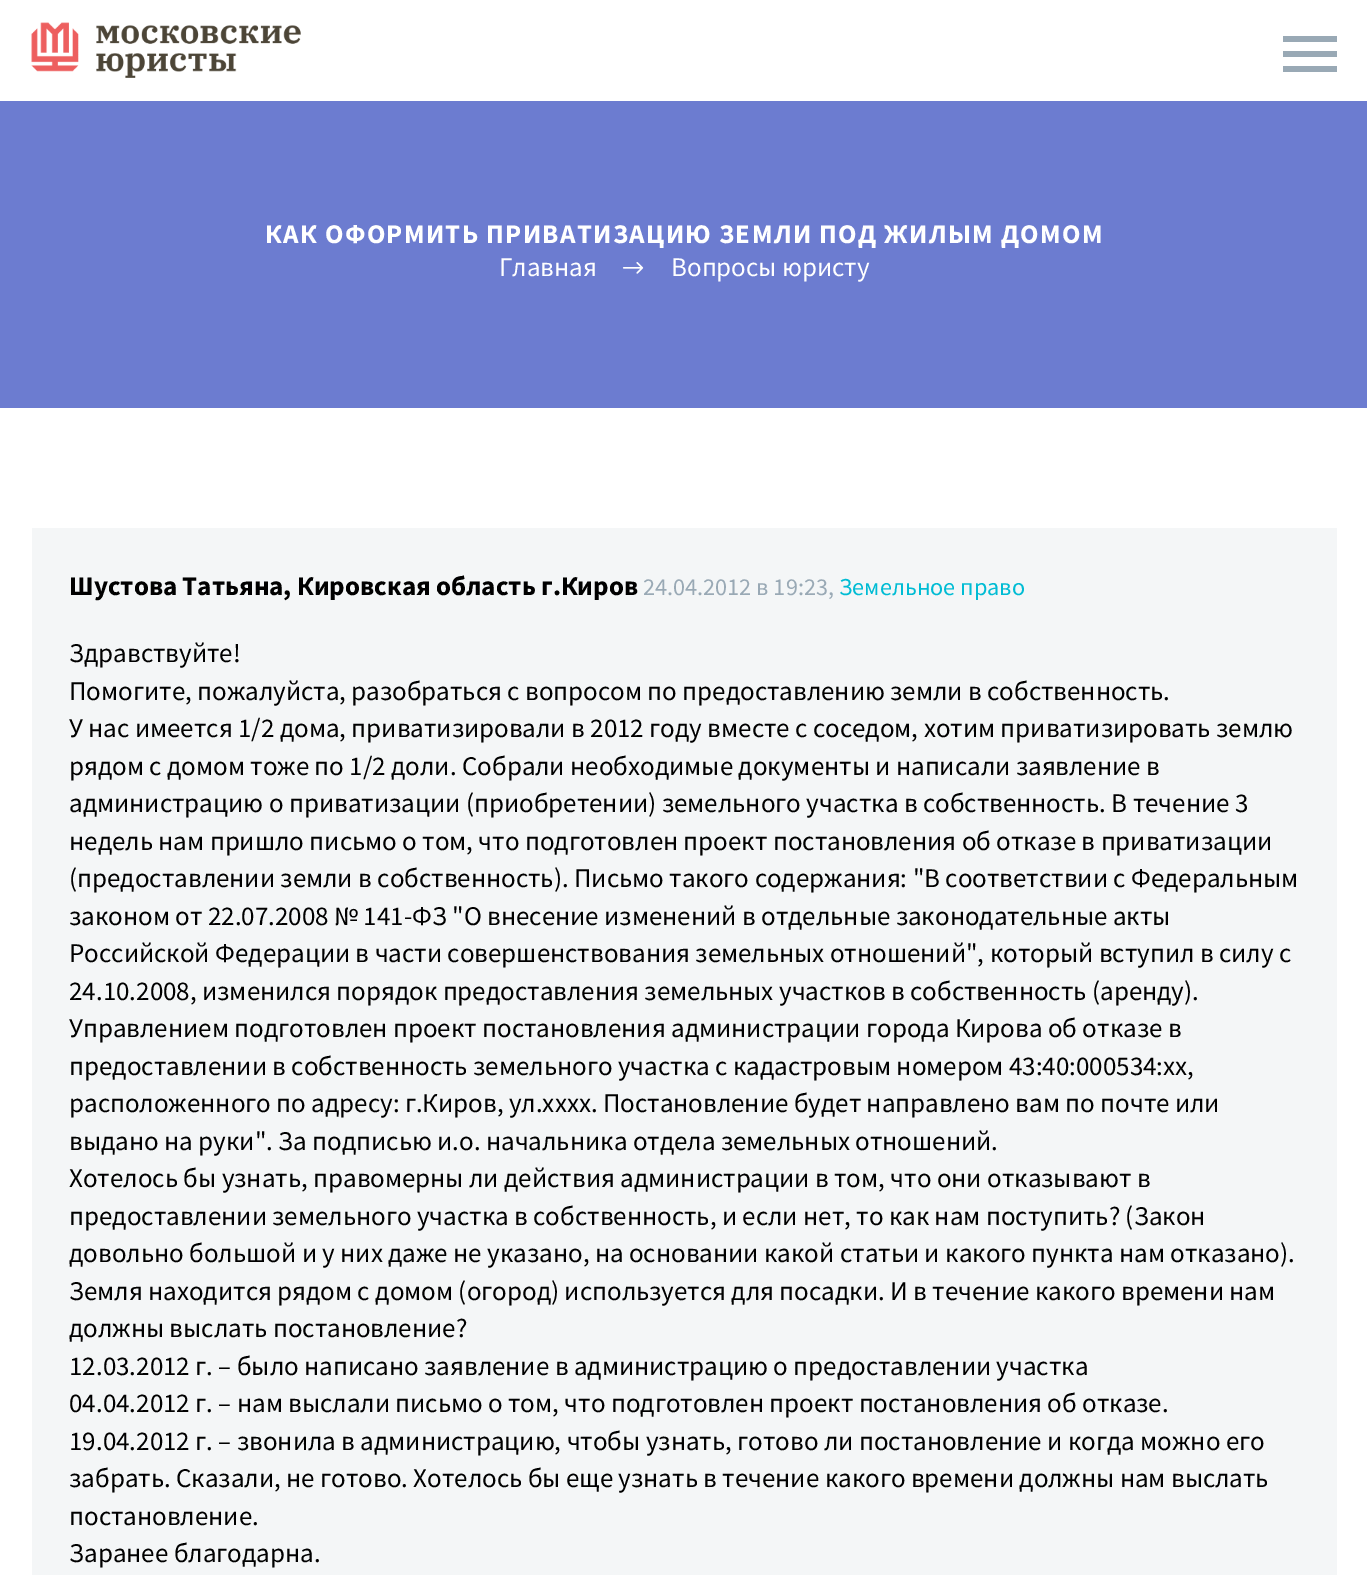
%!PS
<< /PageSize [1367 1575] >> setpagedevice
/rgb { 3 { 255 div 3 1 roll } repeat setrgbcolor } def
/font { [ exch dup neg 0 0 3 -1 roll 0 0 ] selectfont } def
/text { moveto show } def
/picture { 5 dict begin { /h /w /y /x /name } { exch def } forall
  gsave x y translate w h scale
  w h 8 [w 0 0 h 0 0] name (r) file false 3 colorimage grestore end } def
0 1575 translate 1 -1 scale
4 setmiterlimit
255 255 255 rgb
0 0 1367 1575 rectfill
(img_01.rgb) 31 22 270 56 picture
153 169 181 rgb
1283 36 54 6 rectfill
1283 51 54 6 rectfill
1283 66 54 6 rectfill
108 124 208 rgb
0 101 1367 307 rectfill
(img_02.rgb) 622 262 22 12 picture
244 246 247 rgb
32 528 1305 1047 rectfill
/SourceSansPro-Bold 27 font
255 255 255 rgb
265 243 moveto 1.35 0 (КАК ОФОРМИТЬ ПРИВАТИЗАЦИЮ ЗЕМЛИ ПОД ЖИЛЫМ ДОМОМ) ashow
/SourceSansPro-Regular 27 font
(Главная) 499 276 text
(Вопросы юристу) 671 276 text
/SourceSansPro-Bold 27 font
0 0 0 rgb
(Шустова Татьяна, Кировская область г.Киров) 69 595 text
/SourceSansPro-Regular 24.25 font
153 169 181 rgb
(24.04.2012 в 19:23,) 643 595 text
0 188 212 rgb
(Земельное право) 839 595 text
/SourceSansPro-Regular 27 font
0 0 0 rgb
(Здравствуйте!) 69 662 text
(Помогите, пожалуйста, разобраться с вопросом по предоставлению земли в собственность.) 69 700 text
(У нас имеется 1/2 дома, приватизировали в 2012 году вместе с соседом, хотим приватизировать землю) 69 737 text
(рядом с домом тоже по 1/2 доли. Собрали необходимые документы и написали заявление в) 69 775 text
(администрацию о приватизации \(приобретении\) земельного участка в собственность. В течение 3) 69 812 text
(недель нам пришло письмо о том, что подготовлен проект постановления об отказе в приватизации) 69 850 text
(\(предоставлении земли в собственность\). Письмо такого содержания: "В соответствии с Федеральным) 69 887 text
(законом от 22.07.2008 № 141-ФЗ "О внесение изменений в отдельные законодательные акты) 69 925 text
(Российской Федерации в части совершенствования земельных отношений", который вступил в силу с) 69 962 text
(24.10.2008, изменился порядок предоставления земельных участков в собственность \(аренду\).) 69 1000 text
(Управлением подготовлен проект постановления администрации города Кирова об отказе в) 69 1037 text
(предоставлении в собственность земельного участка с кадастровым номером 43:40:000534:хх,) 69 1075 text
(расположенного по адресу: г.Киров, ул.хххх. Постановление будет направлено вам по почте или) 69 1112 text
(выдано на руки". За подписью и.о. начальника отдела земельных отношений.) 69 1150 text
(Хотелось бы узнать, правомерны ли действия администрации в том, что они отказывают в) 69 1187 text
(предоставлении земельного участка в собственность, и если нет, то как нам поступить? \(Закон) 69 1225 text
(довольно большой и у них даже не указано, на основании какой статьи и какого пункта нам отказано\).) 69 1262 text
(Земля находится рядом с домом \(огород\) используется для посадки. И в течение какого времени нам) 69 1300 text
(должны выслать постановление?) 69 1337 text
(12.03.2012 г. – было написано заявление в администрацию о предоставлении участка) 69 1375 text
(04.04.2012 г. – нам выслали письмо о том, что подготовлен проект постановления об отказе.) 69 1412 text
(19.04.2012 г. – звонила в администрацию, чтобы узнать, готово ли постановление и когда можно его) 69 1450 text
(забрать. Сказали, не готово. Хотелось бы еще узнать в течение какого времени должны нам выслать) 69 1487 text
(постановление.) 69 1525 text
(Заранее благодарна.) 69 1562 text
showpage
